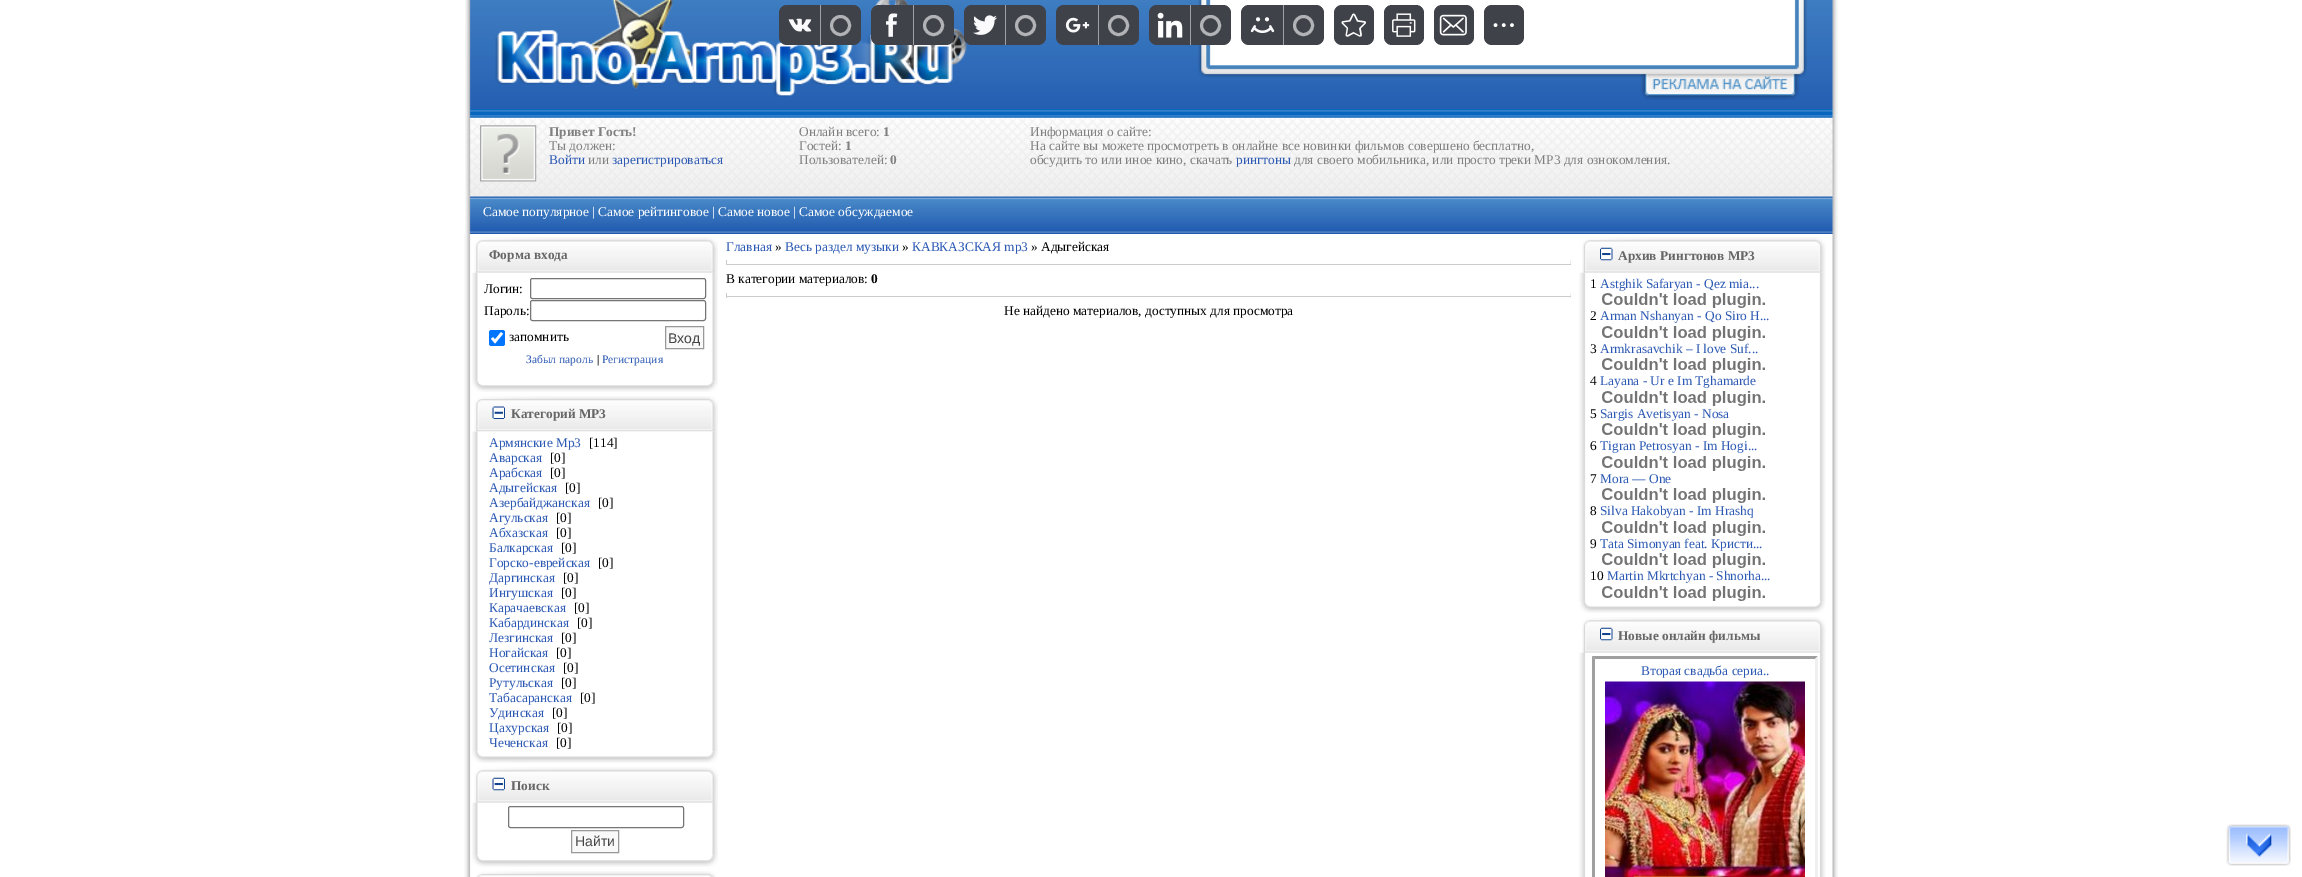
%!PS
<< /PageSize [2302 877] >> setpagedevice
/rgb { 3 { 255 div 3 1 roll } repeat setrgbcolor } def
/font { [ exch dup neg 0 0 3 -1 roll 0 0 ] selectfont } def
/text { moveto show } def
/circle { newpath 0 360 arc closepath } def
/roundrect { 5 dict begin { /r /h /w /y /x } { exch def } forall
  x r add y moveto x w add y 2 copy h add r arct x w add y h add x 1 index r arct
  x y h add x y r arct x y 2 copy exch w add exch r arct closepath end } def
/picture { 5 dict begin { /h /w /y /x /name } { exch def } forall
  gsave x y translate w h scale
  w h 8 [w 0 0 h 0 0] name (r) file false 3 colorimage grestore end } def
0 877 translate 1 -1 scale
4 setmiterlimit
255 255 255 rgb
0 0 2302 877 rectfill
(img_11.rgb) 465 0 1373 109 picture
(img_12.rgb) 495 0 472 97 picture
63 66 72 rgb
779 5 82 40 8 roundrect fill
(img_01.rgb) 788 18 24 14 picture
159 161 164 rgb
820 5 1 40 rectfill
178 179 182 rgb
3 setlinewidth
840.5 25.5 9 circle stroke
63 66 72 rgb
871 5 83 40 8 roundrect fill
(img_02.rgb) 886 13 12 24 picture
159 161 164 rgb
913 5 1 40 rectfill
178 179 182 rgb
933.5 25.5 9 circle stroke
63 66 72 rgb
964 5 82 40 8 roundrect fill
(img_03.rgb) 973 15 24 20 picture
159 161 164 rgb
1005 5 1 40 rectfill
178 179 182 rgb
1025.5 25.5 9 circle stroke
63 66 72 rgb
1056 5 83 40 8 roundrect fill
(img_04.rgb) 1065 17 25 16 picture
159 161 164 rgb
1098 5 1 40 rectfill
178 179 182 rgb
1118.5 25.5 9 circle stroke
(img_14.rgb) 1640 73 160 27 picture
(img_13.rgb) 1198 0 609 78 picture
63 66 72 rgb
1149 5 82 40 8 roundrect fill
(img_05.rgb) 1157 12 26 26 picture
159 161 164 rgb
1190 5 1 40 rectfill
178 179 182 rgb
1210.5 25.5 9 circle stroke
63 66 72 rgb
1241 5 83 40 8 roundrect fill
(img_06.rgb) 1250 17 25 17 picture
159 161 164 rgb
1283 5 1 40 rectfill
178 179 182 rgb
1303.5 25.5 9 circle stroke
63 66 72 rgb
1334 5 40 40 8 roundrect fill
(img_07.rgb) 1341 13 25 24 picture
1384 5 40 40 8 roundrect fill
(img_08.rgb) 1392 13 24 24 picture
1434 5 40 40 8 roundrect fill
(img_09.rgb) 1439 14 28 22 picture
1484 5 40 40 8 roundrect fill
(img_10.rgb) 1493 23 21 5 picture
(img_15.rgb) 465 109 1373 88 picture
(img_16.rgb) 480 125 57 57 picture
(img_17.rgb) 465 196 1373 38 picture
(img_18.rgb) 464 234 1374 643 picture
(img_19.rgb) 474 237 244 36 picture
(img_20.rgb) 472 272 246 109 picture
118 118 118 rgb
1 setlinewidth
530.5 278.5 175 20 2 roundrect stroke
530.5 300.5 175 20 2 roundrect stroke
0 117 255 rgb
489 330 16 16 2.5 roundrect fill
255 255 255 rgb
2.6 setlinewidth
492 338 moveto 3 3.5 rlineto 7 -8.5 rlineto stroke
249 249 249 rgb
665.5 326.5 moveto 38 0 rlineto 0 22 rlineto -38 0 rlineto closepath gsave fill grestore
153 153 153 rgb
1 setlinewidth
stroke
(img_21.rgb) 472 380 246 12 picture
(img_22.rgb) 474 396 244 36 picture
(img_23.rgb) 492 406 13 13 picture
(img_24.rgb) 472 431 246 321 picture
(img_25.rgb) 472 751 246 12 picture
(img_19.rgb) 474 767 244 36 picture
(img_26.rgb) 492 777 13 14 picture
(img_27.rgb) 472 802 246 54 picture
118 118 118 rgb
508.5 806.5 175 21 2 roundrect stroke
249 249 249 rgb
571.5 830.5 moveto 47 0 rlineto 0 22 rlineto -47 0 rlineto closepath gsave fill grestore
153 153 153 rgb
stroke
(img_21.rgb) 472 855 246 12 picture
(img_28.rgb) 476 871 240 6 picture
238 238 238 rgb
1570 260 1 5 rectfill
204 204 204 rgb
726 264 845 1 rectfill
726 260 1 5 rectfill
238 238 238 rgb
1570 293 1 5 rectfill
204 204 204 rgb
726 296 845 1 rectfill
726 293 1 5 rectfill
(img_29.rgb) 1582 237 244 36 picture
(img_30.rgb) 1600 247 13 14 picture
(img_31.rgb) 1579 272 247 330 picture
(img_34.rgb) 1602 358 163 15 picture
(img_34.rgb) 1602 488 163 15 picture
(img_41.rgb) 1580 601 245 12 picture
(img_29.rgb) 1582 617 244 36 picture
(img_30.rgb) 1600 627 13 14 picture
(img_42.rgb) 1579 652 247 225 picture
159 159 159 rgb
1592 656 moveto 226 0 rlineto -3 3 rlineto -220 0 rlineto closepath fill
239 239 239 rgb
1818 656 moveto 0 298 rlineto -3 -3 rlineto 0 -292 rlineto closepath fill
159 159 159 rgb
1592 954 moveto 0 -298 rlineto 3 3 rlineto 0 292 rlineto closepath fill
(img_43.rgb) 1605 681 200 196 picture
(img_44.rgb) 2226 824 65 42 picture
/LiberationSerif-Bold 13.35 font
128 128 128 rgb
(Привет Гость!) 549 136 text
/LiberationSerif-Regular 13.35 font
(Ты должен:) 549 150 text
43 89 179 rgb
(Войти) 549 164 text
128 128 128 rgb
(или) 588 164 text
43 89 179 rgb
(зарегистрироваться) 612 164 text
128 128 128 rgb
(Онлайн всего:) 799 136 text
/LiberationSerif-Bold 13.35 font
(1) 883 136 text
/LiberationSerif-Regular 13.35 font
(Гостей:) 799 150 text
/LiberationSerif-Bold 13.35 font
(1) 845 150 text
/LiberationSerif-Regular 13.35 font
(Пользователей:) 799 164 text
/LiberationSerif-Bold 13.35 font
(0) 890 164 text
/LiberationSerif-Regular 13.35 font
(Информация о сайте:) 1030 136 text
(На сайте вы можете просмотреть в онлайне все новинки фильмов совершено бесплатно,) 1030 150 text
(обсудить то или иное кино, скачать) 1030 164 text
43 89 179 rgb
(рингтоны) 1236 164 text
128 128 128 rgb
(для своего мобильника, или просто треки MP3 для ознокомления.) 1294 164 text
255 255 255 rgb
(Самое популярное | Самое рейтинговое | Самое новое | Самое обсуждаемое) 483 216 text
/LiberationSerif-Bold 13.35 font
102 102 102 rgb
(Форма входа) 489 259 text
/LiberationSerif-Regular 13.35 font
0 0 0 rgb
(Логин:) 484 293 text
(Пароль:) 484 315 text
(запомнить) 509 341 text
/LiberationSans-Regular 14 font
68 68 68 rgb
(Вход) 668 343 text
/LiberationSerif-Regular 11.5 font
43 89 179 rgb
(Забыл пароль) 526 363 text
0 0 0 rgb
(|) 597 363 text
43 89 179 rgb
(Регистрация) 602 363 text
/LiberationSerif-Bold 13.35 font
102 102 102 rgb
(Категорий MP3) 511 418 text
/LiberationSerif-Regular 13.35 font
43 89 179 rgb
(Армянские Mp3) 489 447 text
0 0 0 rgb
([114]) 589 447 text
43 89 179 rgb
(Аварская) 489 462 text
0 0 0 rgb
([0]) 550 462 text
43 89 179 rgb
(Арабская) 489 477 text
0 0 0 rgb
([0]) 550 477 text
43 89 179 rgb
(Адыгейская) 489 492 text
0 0 0 rgb
([0]) 565 492 text
43 89 179 rgb
(Азербайджанская) 489 507 text
0 0 0 rgb
([0]) 598 507 text
43 89 179 rgb
(Агульская) 489 522 text
0 0 0 rgb
([0]) 556 522 text
43 89 179 rgb
(Абхазская) 489 537 text
0 0 0 rgb
([0]) 556 537 text
43 89 179 rgb
(Балкарская) 489 552 text
0 0 0 rgb
([0]) 561 552 text
43 89 179 rgb
(Горско-еврейская) 489 567 text
0 0 0 rgb
([0]) 598 567 text
43 89 179 rgb
(Даргинская) 489 582 text
0 0 0 rgb
([0]) 563 582 text
43 89 179 rgb
(Ингушская) 489 597 text
0 0 0 rgb
([0]) 561 597 text
43 89 179 rgb
(Карачаевская) 489 612 text
0 0 0 rgb
([0]) 574 612 text
43 89 179 rgb
(Кабардинская) 489 627 text
0 0 0 rgb
([0]) 577 627 text
43 89 179 rgb
(Лезгинская) 489 642 text
0 0 0 rgb
([0]) 561 642 text
43 89 179 rgb
(Ногайская) 489 657 text
0 0 0 rgb
([0]) 556 657 text
43 89 179 rgb
(Осетинская) 489 672 text
0 0 0 rgb
([0]) 563 672 text
43 89 179 rgb
(Рутульская) 489 687 text
0 0 0 rgb
([0]) 561 687 text
43 89 179 rgb
(Табасаранская) 489 702 text
0 0 0 rgb
([0]) 580 702 text
43 89 179 rgb
(Удинская) 489 717 text
0 0 0 rgb
([0]) 552 717 text
43 89 179 rgb
(Цахурская) 489 732 text
0 0 0 rgb
([0]) 557 732 text
43 89 179 rgb
(Чеченская) 489 747 text
0 0 0 rgb
([0]) 556 747 text
/LiberationSerif-Bold 13.35 font
102 102 102 rgb
(Поиск) 511 790 text
/LiberationSans-Regular 14 font
68 68 68 rgb
(Найти) 575 846 text
/LiberationSerif-Regular 13.35 font
43 89 179 rgb
(Главная) 726 251 text
0 0 0 rgb
(») 775 251 text
43 89 179 rgb
(Весь раздел музыки) 785 251 text
0 0 0 rgb
(») 902 251 text
43 89 179 rgb
(КАВКАЗСКАЯ mp3) 912 251 text
0 0 0 rgb
(» Адыгейская) 1031 251 text
(В категории материалов:) 726 283 text
/LiberationSerif-Bold 13.35 font
(0) 871 283 text
/LiberationSerif-Regular 13.35 font
(Не найдено материалов, доступных для просмотра) 1004 315 text
/LiberationSerif-Bold 13.35 font
102 102 102 rgb
(Архив Рингтонов MP3) 1618 260 text
/LiberationSerif-Regular 13.35 font
0 0 0 rgb
(1) 1590 288 text
43 89 179 rgb
(Astghik Safaryan - Qez mia...) 1600 288 text
(img_32.rgb) 1602 290 163 18 picture
0 0 0 rgb
(2) 1590 320 text
43 89 179 rgb
(Arman Nshanyan - Qo Siro H...) 1600 320 text
(img_33.rgb) 1602 322 163 19 picture
0 0 0 rgb
(3) 1590 353 text
43 89 179 rgb
(Armkrasavchik – I love Suf...) 1600 353 text
0 0 0 rgb
(4) 1590 385 text
43 89 179 rgb
(Layana - Ur e Im Tghamarde) 1600 385 text
(img_35.rgb) 1602 387 163 19 picture
0 0 0 rgb
(5) 1590 418 text
43 89 179 rgb
(Sargis Avetisyan - Nosa) 1600 418 text
(img_36.rgb) 1602 420 163 18 picture
0 0 0 rgb
(6) 1590 450 text
43 89 179 rgb
(Tigran Petrosyan - Im Hogi...) 1600 450 text
(img_37.rgb) 1602 452 163 19 picture
0 0 0 rgb
(7) 1590 483 text
43 89 179 rgb
(Mora — One) 1600 483 text
0 0 0 rgb
(8) 1590 515 text
43 89 179 rgb
(Silva Hakobyan - Im Hrashq) 1600 515 text
(img_38.rgb) 1602 517 163 19 picture
0 0 0 rgb
(9) 1590 548 text
43 89 179 rgb
(Tata Simonyan feat. Кристи...) 1600 548 text
(img_39.rgb) 1602 550 163 18 picture
0 0 0 rgb
(10) 1590 580 text
43 89 179 rgb
(Martin Mkrtchyan - Shnorha...) 1607 580 text
(img_40.rgb) 1602 582 163 19 picture
/LiberationSerif-Bold 13.35 font
102 102 102 rgb
(Новые онлайн фильмы) 1618 640 text
/LiberationSerif-Regular 13.35 font
43 89 179 rgb
(Вторая свадьба сериа..) 1641 675 text
showpage
